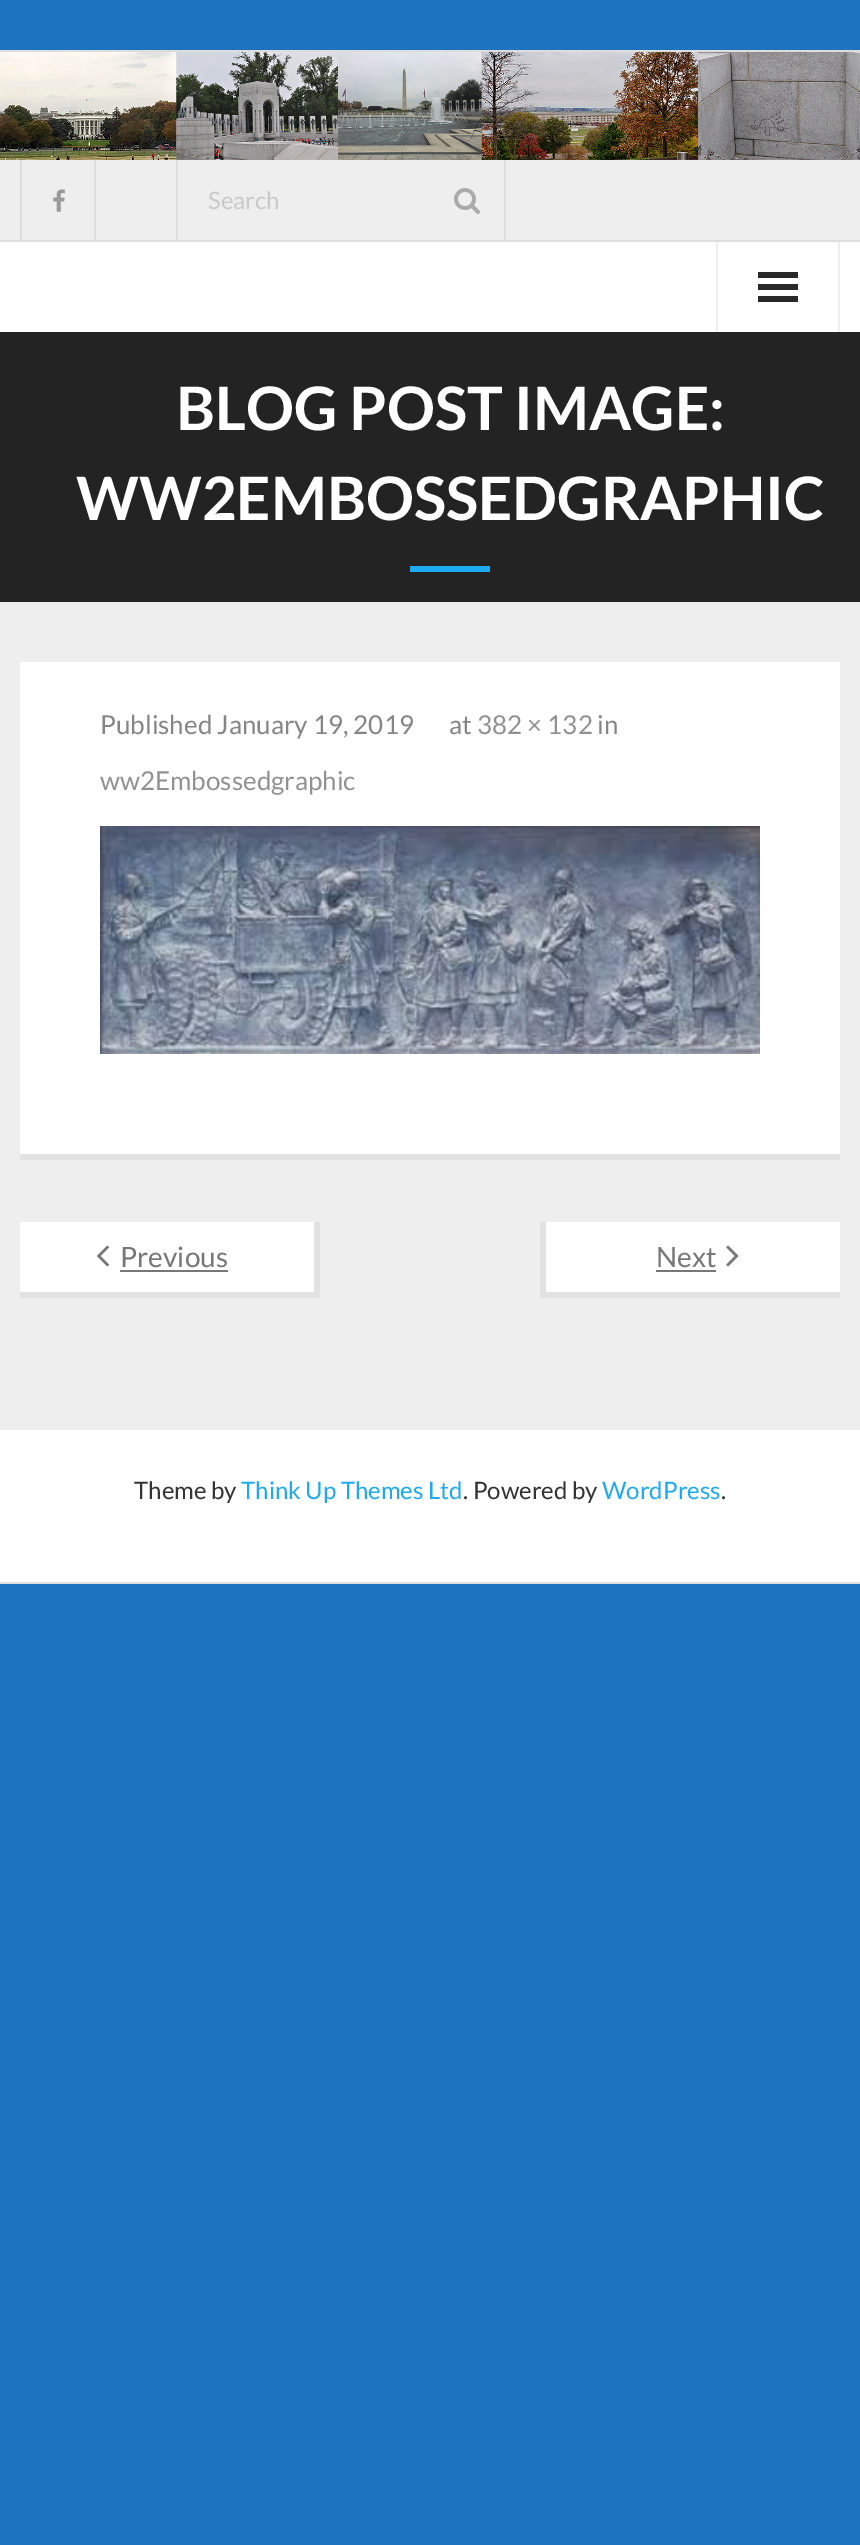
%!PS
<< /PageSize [860 2545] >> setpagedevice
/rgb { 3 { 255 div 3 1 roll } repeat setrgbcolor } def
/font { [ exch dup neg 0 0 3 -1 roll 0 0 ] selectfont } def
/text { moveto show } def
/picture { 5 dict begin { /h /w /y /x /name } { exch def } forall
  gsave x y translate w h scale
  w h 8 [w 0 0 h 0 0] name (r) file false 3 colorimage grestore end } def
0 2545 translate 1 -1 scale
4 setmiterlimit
30 115 190 rgb
0 0 860 2545 rectfill
238 238 238 rgb
0 160 860 1270 rectfill
221 221 221 rgb
0 50 860 2 rectfill
0 1582 860 2 rectfill
(img_01.rgb) 0 52 860 108 picture
0 240 860 2 rectfill
94 160 2 80 rectfill
20 160 2 80 rectfill
(img_02.rgb) 53 189 12 23 picture
504 160 2 80 rectfill
176 160 2 80 rectfill
(img_03.rgb) 454 188 26 26 picture
255 255 255 rgb
0 242 860 90 rectfill
238 238 238 rgb
838 242 2 90 rectfill
716 242 2 90 rectfill
41 41 41 rgb
758 272 40 6 rectfill
758 284 40 6 rectfill
758 296 40 6 rectfill
35 35 35 rgb
0 332 860 270 rectfill
30 170 241 rgb
410 566 80 6 rectfill
255 255 255 rgb
20 662 820 492 rectfill
226 226 226 rgb
20 1154 820 6 rectfill
(img_04.rgb) 100 826 660 228 picture
255 255 255 rgb
20 1222 294 70 rectfill
226 226 226 rgb
314 1222 6 76 rectfill
20 1292 300 6 rectfill
(img_05.rgb) 97 1245 12 22 picture
119 119 119 rgb
120 1270 108 2 rectfill
255 255 255 rgb
546 1222 294 70 rectfill
226 226 226 rgb
540 1292 300 6 rectfill
540 1222 6 76 rectfill
119 119 119 rgb
656 1270 60 2 rectfill
(img_06.rgb) 726 1245 13 22 picture
255 255 255 rgb
0 1430 860 152 rectfill
/Lato-Regular 24 font
202 202 202 rgb
(Search) 208 209 text
/Lato-Bold 60 font
255 255 255 rgb
(BLOG POST IMAGE:) 176 430 text
(WW2EMBOSSEDGRAPHIC) 76 520 text
/Lato-Regular 26 font
133 133 133 rgb
(Published January 19, 2019) 100 734 text
(at) 449 734 text
145 145 145 rgb
(382 × 132) 477 734 text
133 133 133 rgb
(in) 597 734 text
145 145 145 rgb
(ww2Embossedgraphic) 100 790 text
/Lato-Regular 28 font
119 119 119 rgb
(Previous) 120 1267 text
(Next) 656 1267 text
/Lato-Regular 24 font
51 51 51 rgb
(Theme by) 134 1499 text
30 170 241 rgb
(Think Up Themes Ltd) 241 1499 text
51 51 51 rgb
(. Powered by) 463 1499 text
30 170 241 rgb
(WordPress) 602 1499 text
51 51 51 rgb
(.) 721 1499 text
showpage
